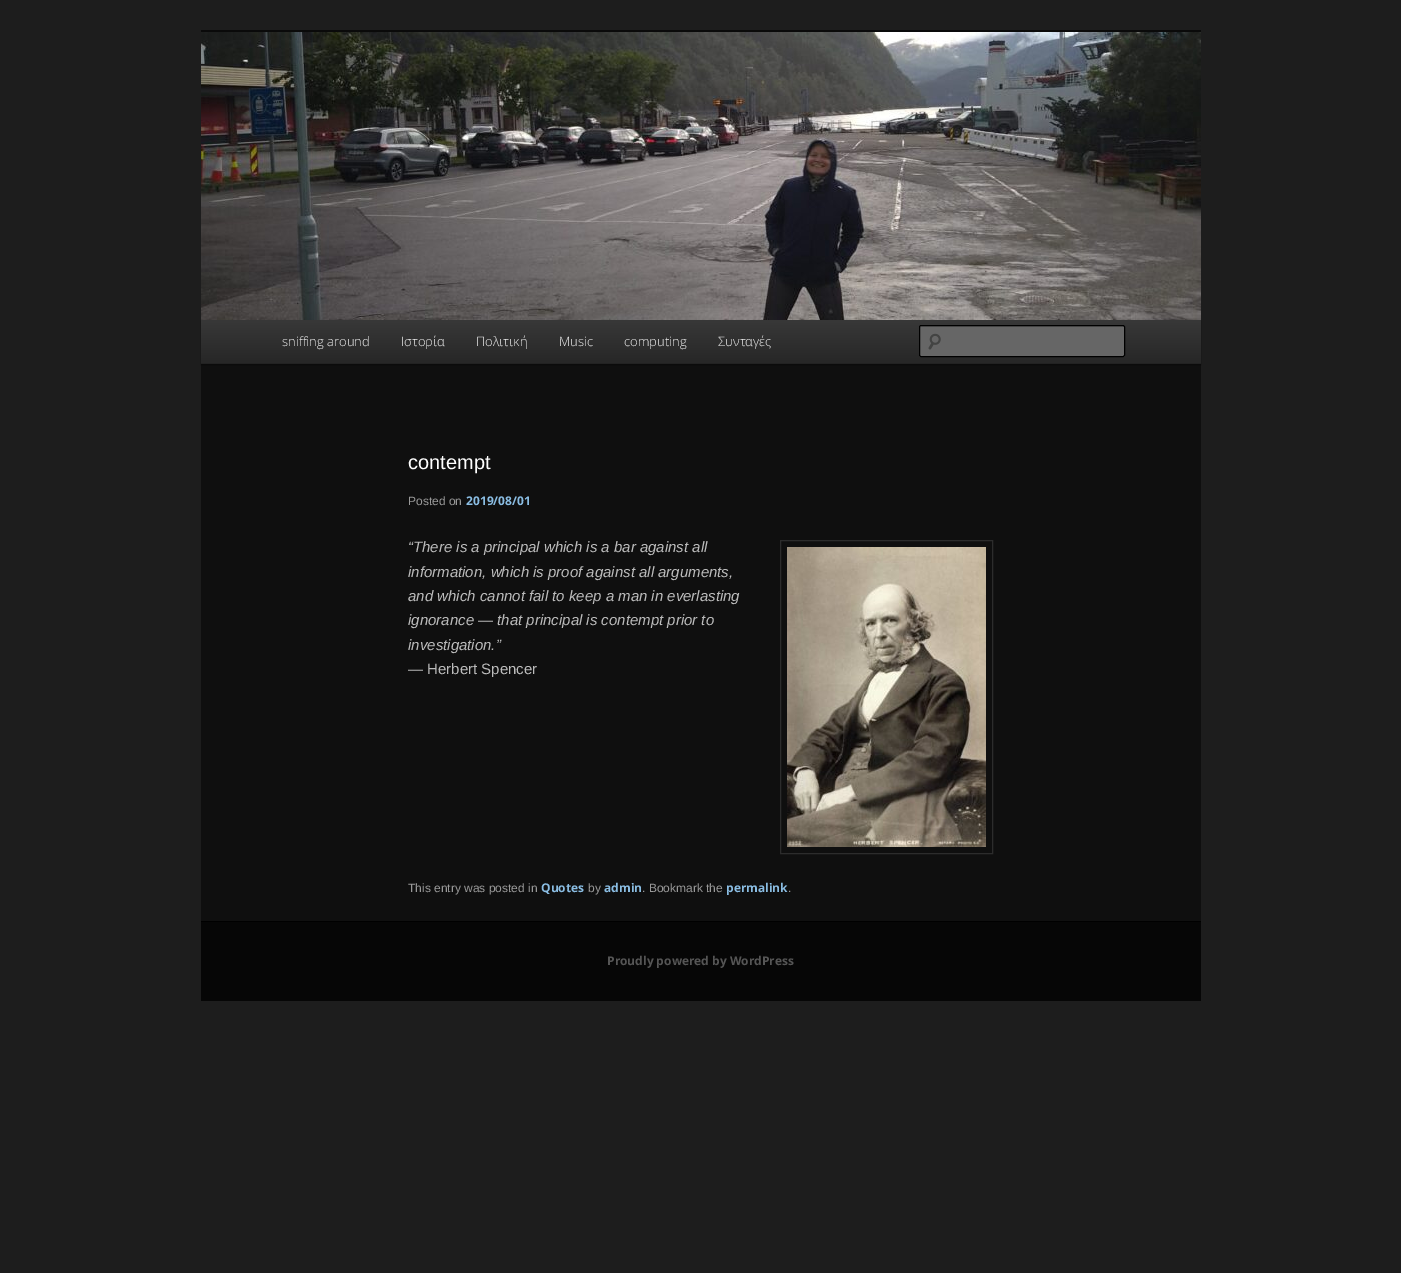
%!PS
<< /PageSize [1401 1273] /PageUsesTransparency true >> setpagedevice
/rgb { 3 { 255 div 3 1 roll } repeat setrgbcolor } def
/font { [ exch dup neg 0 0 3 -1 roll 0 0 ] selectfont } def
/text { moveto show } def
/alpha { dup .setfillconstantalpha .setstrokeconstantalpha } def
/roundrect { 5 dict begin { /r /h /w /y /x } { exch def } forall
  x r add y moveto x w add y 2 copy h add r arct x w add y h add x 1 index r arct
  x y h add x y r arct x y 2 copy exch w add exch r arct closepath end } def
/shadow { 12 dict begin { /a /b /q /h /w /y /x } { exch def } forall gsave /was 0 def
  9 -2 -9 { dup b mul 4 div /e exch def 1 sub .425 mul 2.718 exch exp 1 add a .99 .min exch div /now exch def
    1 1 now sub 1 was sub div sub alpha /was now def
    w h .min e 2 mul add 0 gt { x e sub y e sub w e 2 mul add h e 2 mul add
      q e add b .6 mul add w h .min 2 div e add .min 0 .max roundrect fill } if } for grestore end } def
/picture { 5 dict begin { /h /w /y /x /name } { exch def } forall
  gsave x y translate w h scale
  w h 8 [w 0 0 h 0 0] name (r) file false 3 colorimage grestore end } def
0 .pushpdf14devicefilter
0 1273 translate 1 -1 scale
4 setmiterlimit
29 29 29 rgb
0 0 1401 1273 rectfill
15 15 15 rgb
201 364 1000 557 rectfill
10 10 10 rgb
201 30 1000 2 rectfill
0 0 0 rgb
201 321 1000 44 0 1 0.4 shadow
(img_01.rgb) 201 32 1000 288 picture
gsave 201 320 moveto 1000 0 rlineto 0 43 rlineto -1000 0 rlineto closepath clip newpath
<< /ShadingType 2 /ColorSpace /DeviceRGB /Coords [701 320 701 363] /Extend [true true] /Function << /FunctionType 2 /Domain [0 1] /C0 [0.22 0.22 0.22] /C1 [0.153 0.153 0.153] /N 1 >> >> shfill grestore
34 34 34 rgb
201 363 1000 1 rectfill
102 102 102 rgb
919 325 206 32 2 roundrect fill
(img_02.rgb) 928 333 13 17 picture
92 92 92 rgb
921 327 moveto 203 0 rlineto 0 1 rlineto 0 -2 rlineto -1 0 rlineto -202 0 rlineto -1 0 -1 1 -1 2 rcurveto 0 -1 0 -1 1 -1 rcurveto closepath fill
0 0 0 rgb
919.5 325.5 205 31 1.5 roundrect stroke
44 44 44 rgb
780.5 540.5 212 313 rectstroke
(img_03.rgb) 787 547 199 300 picture
6 6 6 rgb
201 922 1000 79 rectfill
0 0 0 rgb
201 921 1000 1 rectfill
/OpenSans-Light 13 font
238 238 238 rgb
(sniffing around) 282 346 text
(Ιστορία) 401 346 text
(Πολιτική) 476 346 text
(Music) 559 346 text
(computing) 624 346 text
(Συνταγές) 718 346 text
/LiberationSans-Regular 20 font
255 255 255 rgb
(contempt) 408 469 text
/LiberationSans-Regular 12 font
153 153 153 rgb
(Posted on) 408 505 text
/OpenSans-Bold 12 font
138 189 227 rgb
(2019/08/01) 466 505 text
/LiberationSans-Italic 15 font
187 187 187 rgb
(“There is a principal which is a bar against all) 408 552 text
(information, which is proof against all arguments,) 408 577 text
(and which cannot fail to keep a man in everlasting) 408 601 text
(ignorance — that principal is contempt prior to) 408 625 text
(investigation.”) 408 650 text
/LiberationSans-Regular 15 font
(— Herbert Spencer) 408 674 text
/LiberationSans-Regular 12 font
153 153 153 rgb
(This entry was posted in) 408 892 text
/OpenSans-Bold 12 font
138 189 227 rgb
(Quotes) 541 892 text
/LiberationSans-Regular 12 font
153 153 153 rgb
(by) 588 892 text
/OpenSans-Bold 12 font
138 189 227 rgb
(admin) 604 892 text
/LiberationSans-Regular 12 font
153 153 153 rgb
(. Bookmark the) 642 892 text
/OpenSans-Bold 12 font
138 189 227 rgb
(permalink) 726 892 text
/LiberationSans-Regular 12 font
153 153 153 rgb
(.) 788 892 text
/OpenSans-Bold 12 font
85 85 85 rgb
(Proudly powered by WordPress) 607 965 text
.poppdf14devicefilter showpage
